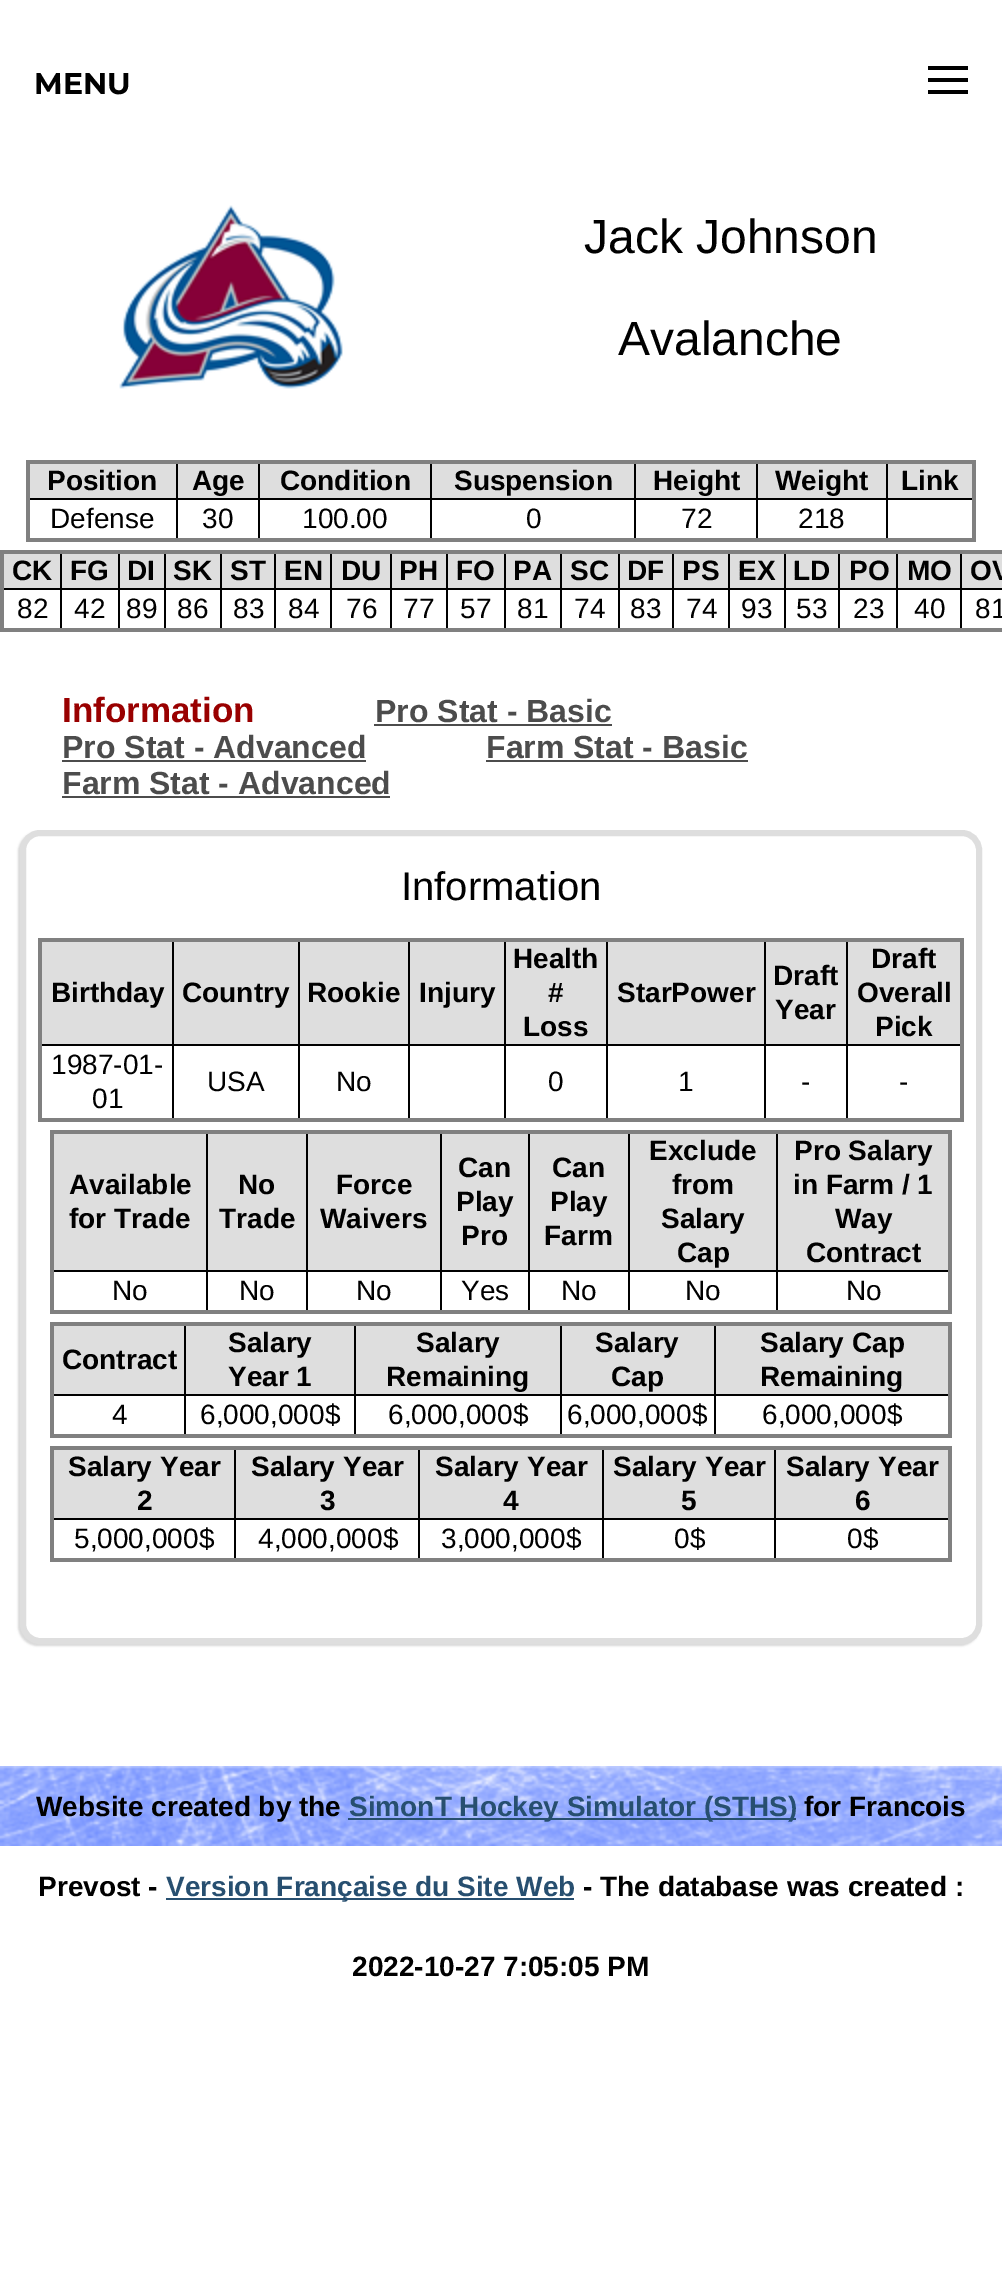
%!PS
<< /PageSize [1002 2295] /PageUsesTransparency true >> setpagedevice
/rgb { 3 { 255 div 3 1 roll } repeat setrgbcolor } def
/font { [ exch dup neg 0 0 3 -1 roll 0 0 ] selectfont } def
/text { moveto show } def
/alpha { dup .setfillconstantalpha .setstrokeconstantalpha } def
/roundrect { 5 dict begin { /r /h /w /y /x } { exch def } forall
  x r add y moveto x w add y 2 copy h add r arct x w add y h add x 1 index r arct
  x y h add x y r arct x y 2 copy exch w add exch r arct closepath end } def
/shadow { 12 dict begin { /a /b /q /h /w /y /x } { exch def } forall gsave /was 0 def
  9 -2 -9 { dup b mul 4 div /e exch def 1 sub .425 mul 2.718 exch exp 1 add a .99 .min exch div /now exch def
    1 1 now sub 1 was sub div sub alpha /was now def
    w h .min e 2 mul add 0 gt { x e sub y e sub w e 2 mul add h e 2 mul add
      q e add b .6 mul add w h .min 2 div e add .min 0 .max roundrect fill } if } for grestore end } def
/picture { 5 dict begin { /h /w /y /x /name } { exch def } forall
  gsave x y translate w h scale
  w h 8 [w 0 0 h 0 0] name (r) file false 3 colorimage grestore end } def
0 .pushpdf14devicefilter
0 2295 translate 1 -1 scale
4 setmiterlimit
255 255 255 rgb
0 0 1002 2295 rectfill
0 0 0 rgb
928 66 40 4 rectfill
928 78 40 4 rectfill
928 90 40 4 rectfill
(img_01.rgb) 119 205 224 184 picture
886 498 90 2 rectfill
886 498 2 44 rectfill
756 498 132 2 rectfill
756 498 2 44 rectfill
634 498 124 2 rectfill
634 498 2 44 rectfill
430 498 206 2 rectfill
430 498 2 44 rectfill
258 498 174 2 rectfill
258 498 2 44 rectfill
176 498 84 2 rectfill
176 498 2 44 rectfill
26 498 152 2 rectfill
176 462 2 38 rectfill
258 462 2 38 rectfill
430 462 2 38 rectfill
634 462 2 38 rectfill
756 462 2 38 rectfill
886 462 2 38 rectfill
128 128 128 rgb
26 460 950 4 rectfill
972 460 4 82 rectfill
26 538 950 4 rectfill
26 460 4 82 rectfill
222 222 222 rgb
30 464 146 34 rectfill
178 464 80 34 rectfill
260 464 170 34 rectfill
432 464 202 34 rectfill
636 464 120 34 rectfill
758 464 128 34 rectfill
888 464 84 34 rectfill
0 0 0 rgb
960 588 42 2 rectfill
960 588 2 44 rectfill
896 588 66 2 rectfill
896 588 2 44 rectfill
838 588 60 2 rectfill
838 588 2 44 rectfill
784 588 56 2 rectfill
784 588 2 44 rectfill
728 588 58 2 rectfill
728 588 2 44 rectfill
672 588 58 2 rectfill
672 588 2 44 rectfill
618 588 56 2 rectfill
618 588 2 44 rectfill
560 588 60 2 rectfill
560 588 2 44 rectfill
504 588 58 2 rectfill
504 588 2 44 rectfill
446 588 60 2 rectfill
446 588 2 44 rectfill
390 588 58 2 rectfill
390 588 2 44 rectfill
330 588 62 2 rectfill
330 588 2 44 rectfill
274 588 58 2 rectfill
274 588 2 44 rectfill
220 588 56 2 rectfill
220 588 2 44 rectfill
164 588 58 2 rectfill
164 588 2 44 rectfill
118 588 48 2 rectfill
118 588 2 44 rectfill
60 588 60 2 rectfill
60 588 2 44 rectfill
2 588 60 2 rectfill
60 552 2 38 rectfill
118 552 2 38 rectfill
164 552 2 38 rectfill
220 552 2 38 rectfill
274 552 2 38 rectfill
330 552 2 38 rectfill
390 552 2 38 rectfill
446 552 2 38 rectfill
504 552 2 38 rectfill
560 552 2 38 rectfill
618 552 2 38 rectfill
672 552 2 38 rectfill
728 552 2 38 rectfill
784 552 2 38 rectfill
838 552 2 38 rectfill
896 552 2 38 rectfill
960 552 2 38 rectfill
128 128 128 rgb
0 550 1002 4 rectfill
0 628 1002 4 rectfill
0 550 4 82 rectfill
222 222 222 rgb
4 554 56 34 rectfill
62 554 56 34 rectfill
120 554 44 34 rectfill
166 554 54 34 rectfill
222 554 52 34 rectfill
276 554 54 34 rectfill
332 554 58 34 rectfill
392 554 54 34 rectfill
448 554 56 34 rectfill
506 554 54 34 rectfill
562 554 56 34 rectfill
620 554 52 34 rectfill
674 554 54 34 rectfill
730 554 54 34 rectfill
786 554 52 34 rectfill
840 554 56 34 rectfill
898 554 62 34 rectfill
962 554 40 34 rectfill
76 76 76 rgb
374 724 238 2 rectfill
62 760 304 2 rectfill
486 760 262 2 rectfill
62 796 328 2 rectfill
gsave
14 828 moveto 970 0 rlineto 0 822 rlineto -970 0 rlineto closepath 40 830 moveto 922 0 rlineto 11 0 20 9 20 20 rcurveto 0 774 rlineto 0 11 -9 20 -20 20 rcurveto -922 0 rlineto -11 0 -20 -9 -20 -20 rcurveto 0 -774 rlineto 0 -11 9 -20 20 -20 rcurveto closepath eoclip newpath
0 0 0 rgb
18 832 962 814 20 1 0.15 shadow
grestore
222 222 222 rgb
6 setlinewidth
23 833 956 808 17 roundrect stroke
0 0 0 rgb
846 1044 116 2 rectfill
846 1044 2 78 rectfill
764 1044 84 2 rectfill
764 1044 2 78 rectfill
606 1044 160 2 rectfill
606 1044 2 78 rectfill
504 1044 104 2 rectfill
504 1044 2 78 rectfill
408 1044 98 2 rectfill
408 1044 2 78 rectfill
298 1044 112 2 rectfill
298 1044 2 78 rectfill
172 1044 128 2 rectfill
172 1044 2 78 rectfill
40 1044 134 2 rectfill
172 940 2 106 rectfill
298 940 2 106 rectfill
408 940 2 106 rectfill
504 940 2 106 rectfill
606 940 2 106 rectfill
764 940 2 106 rectfill
846 940 2 106 rectfill
128 128 128 rgb
38 938 926 4 rectfill
960 938 4 184 rectfill
38 1118 926 4 rectfill
38 938 4 184 rectfill
222 222 222 rgb
42 942 130 102 rectfill
174 942 124 102 rectfill
300 942 108 102 rectfill
410 942 94 102 rectfill
506 942 100 102 rectfill
608 942 156 102 rectfill
766 942 80 102 rectfill
848 942 112 102 rectfill
0 0 0 rgb
776 1270 176 2 rectfill
776 1270 2 44 rectfill
628 1270 150 2 rectfill
628 1270 2 44 rectfill
528 1270 102 2 rectfill
528 1270 2 44 rectfill
440 1270 90 2 rectfill
440 1270 2 44 rectfill
306 1270 136 2 rectfill
306 1270 2 44 rectfill
206 1270 102 2 rectfill
206 1270 2 44 rectfill
50 1270 158 2 rectfill
206 1132 2 140 rectfill
306 1132 2 140 rectfill
440 1132 2 140 rectfill
528 1132 2 140 rectfill
628 1132 2 140 rectfill
776 1132 2 140 rectfill
128 128 128 rgb
50 1130 902 4 rectfill
948 1130 4 184 rectfill
50 1310 902 4 rectfill
50 1130 4 184 rectfill
222 222 222 rgb
54 1134 152 136 rectfill
208 1134 98 136 rectfill
308 1134 132 136 rectfill
442 1134 86 136 rectfill
530 1134 98 136 rectfill
630 1134 146 136 rectfill
778 1134 170 136 rectfill
0 0 0 rgb
714 1394 238 2 rectfill
714 1394 2 44 rectfill
560 1394 156 2 rectfill
560 1394 2 44 rectfill
354 1394 208 2 rectfill
354 1394 2 44 rectfill
184 1394 172 2 rectfill
184 1394 2 44 rectfill
50 1394 136 2 rectfill
184 1324 2 72 rectfill
354 1324 2 72 rectfill
560 1324 2 72 rectfill
714 1324 2 72 rectfill
128 128 128 rgb
50 1322 902 4 rectfill
948 1322 4 116 rectfill
50 1434 902 4 rectfill
50 1322 4 116 rectfill
222 222 222 rgb
54 1326 130 68 rectfill
186 1326 168 68 rectfill
356 1326 204 68 rectfill
562 1326 152 68 rectfill
716 1326 232 68 rectfill
0 0 0 rgb
774 1518 178 2 rectfill
774 1518 2 44 rectfill
602 1518 174 2 rectfill
602 1518 2 44 rectfill
418 1518 186 2 rectfill
418 1518 2 44 rectfill
234 1518 186 2 rectfill
234 1518 2 44 rectfill
50 1518 186 2 rectfill
234 1448 2 72 rectfill
418 1448 2 72 rectfill
602 1448 2 72 rectfill
774 1448 2 72 rectfill
128 128 128 rgb
50 1446 902 4 rectfill
948 1446 4 116 rectfill
50 1558 902 4 rectfill
50 1446 4 116 rectfill
222 222 222 rgb
54 1450 180 68 rectfill
236 1450 182 68 rectfill
420 1450 182 68 rectfill
604 1450 170 68 rectfill
776 1450 172 68 rectfill
(img_02.rgb) 0 1766 1002 80 picture
39 79 112 rgb
348 1818 448 2 rectfill
166 1898 408 2 rectfill
/Montserrat-Bold 30 font
0 0 0 rgb
(MENU) 34 94 text
/LiberationSans-Regular 48 font
(Jack Johnson) 584 253 text
(Avalanche) 618 355 text
/LiberationSans-Bold 28 font
(Position) 47 490 text
(Age) 192 490 text
(Condition) 280 490 text
(Suspension) 454 490 text
(Height) 653 490 text
(Weight) 775 490 text
(Link) 901 490 text
/LiberationSans-Regular 28 font
(Defense) 50 528 text
(30) 202 528 text
(100.00) 302 528 text
(0) 526 528 text
(72) 681 528 text
(218) 798 528 text
/LiberationSans-Bold 28 font
(CK) 12 580 text
(FG) 70 580 text
(DI) 127 580 text
(SK) 173 580 text
(ST) 230 580 text
(EN) 284 580 text
(DU) 341 580 text
(PH) 399 580 text
(FO) 456 580 text
(PA) 513 580 text
(SC) 570 580 text
(DF) 627 580 text
(PS) 682 580 text
(EX) 738 580 text
(LD) 793 580 text
(PO) 849 580 text
(MO) 907 580 text
(OV) 970 580 text
/LiberationSans-Regular 28 font
(82) 17 618 text
(42) 74 618 text
(89) 126 618 text
(86) 177 618 text
(83) 233 618 text
(84) 288 618 text
(76) 346 618 text
(77) 403 618 text
(57) 460 618 text
(81) 517 618 text
(74) 574 618 text
(83) 630 618 text
(74) 686 618 text
(93) 741 618 text
(53) 796 618 text
(23) 853 618 text
(40) 914 618 text
(81) 975 618 text
/LiberationSans-Bold 35 font
153 0 0 rgb
(Information) 62 722 text
/LiberationSans-Bold 32 font
76 76 76 rgb
(Pro Stat - Basic) 375 722 text
(Pro Stat - Advanced) 62 758 text
(Farm Stat - Basic) 486 758 text
(Farm Stat - Advanced) 62 794 text
/LiberationSans-Regular 40 font
0 0 0 rgb
(Information) 401 900 text
/LiberationSans-Bold 28 font
(Birthday) 51 1002 text
(Country) 182 1002 text
(Rookie) 307 1002 text
(Injury) 419 1002 text
(Health) 513 968 text
(#) 548 1002 text
(Loss) 523 1036 text
(StarPower) 617 1002 text
(Draft) 773 985 text
(Year) 775 1019 text
(Draft) 871 968 text
(Overall) 857 1002 text
(Pick) 875 1036 text
/LiberationSans-Regular 28 font
(1987-01-) 51 1074 text
(01) 92 1108 text
(USA) 207 1091 text
(No) 336 1091 text
(0) 548 1091 text
(1) 678 1091 text
(-) 801 1091 text
(-) 899 1091 text
/LiberationSans-Bold 28 font
(Available) 69 1194 text
(for Trade) 69 1228 text
(No) 238 1194 text
(Trade) 219 1228 text
(Force) 336 1194 text
(Waivers) 320 1228 text
(Can) 458 1177 text
(Play) 456 1211 text
(Pro) 461 1245 text
(Can) 552 1177 text
(Play) 550 1211 text
(Farm) 544 1245 text
(Exclude) 649 1160 text
(from) 672 1194 text
(Salary) 661 1228 text
(Cap) 677 1262 text
(Pro Salary) 794 1160 text
(in Farm / 1) 793 1194 text
(Way) 835 1228 text
(Contract) 806 1262 text
/LiberationSans-Regular 28 font
(No) 112 1300 text
(No) 239 1300 text
(No) 356 1300 text
(Yes) 461 1300 text
(No) 561 1300 text
(No) 685 1300 text
(No) 846 1300 text
/LiberationSans-Bold 28 font
(Contract) 62 1369 text
(Salary) 228 1352 text
(Year 1) 228 1386 text
(Salary) 416 1352 text
(Remaining) 386 1386 text
(Salary) 595 1352 text
(Cap) 611 1386 text
(Salary Cap) 760 1352 text
(Remaining) 760 1386 text
/LiberationSans-Regular 28 font
(4) 112 1424 text
(6,000,000$) 200 1424 text
(6,000,000$) 388 1424 text
(6,000,000$) 567 1424 text
(6,000,000$) 762 1424 text
/LiberationSans-Bold 28 font
(Salary Year) 68 1476 text
(2) 137 1510 text
(Salary Year) 251 1476 text
(3) 320 1510 text
(Salary Year) 435 1476 text
(4) 503 1510 text
(Salary Year) 613 1476 text
(5) 681 1510 text
(Salary Year) 786 1476 text
(6) 855 1510 text
/LiberationSans-Regular 28 font
(5,000,000$) 74 1548 text
(4,000,000$) 258 1548 text
(3,000,000$) 441 1548 text
(0$) 674 1548 text
(0$) 847 1548 text
/LiberationSans-Bold 28 font
(Website created by the) 36 1816 text
39 79 112 rgb
(SimonT Hockey Simulator \(STHS\)) 349 1816 text
0 0 0 rgb
(for Francois) 804 1816 text
(Prevost -) 38 1896 text
39 79 112 rgb
(Version Française du Site Web) 166 1896 text
0 0 0 rgb
(- The database was created :) 583 1896 text
(2022-10-27 7:05:05 PM) 352 1976 text
.poppdf14devicefilter showpage
